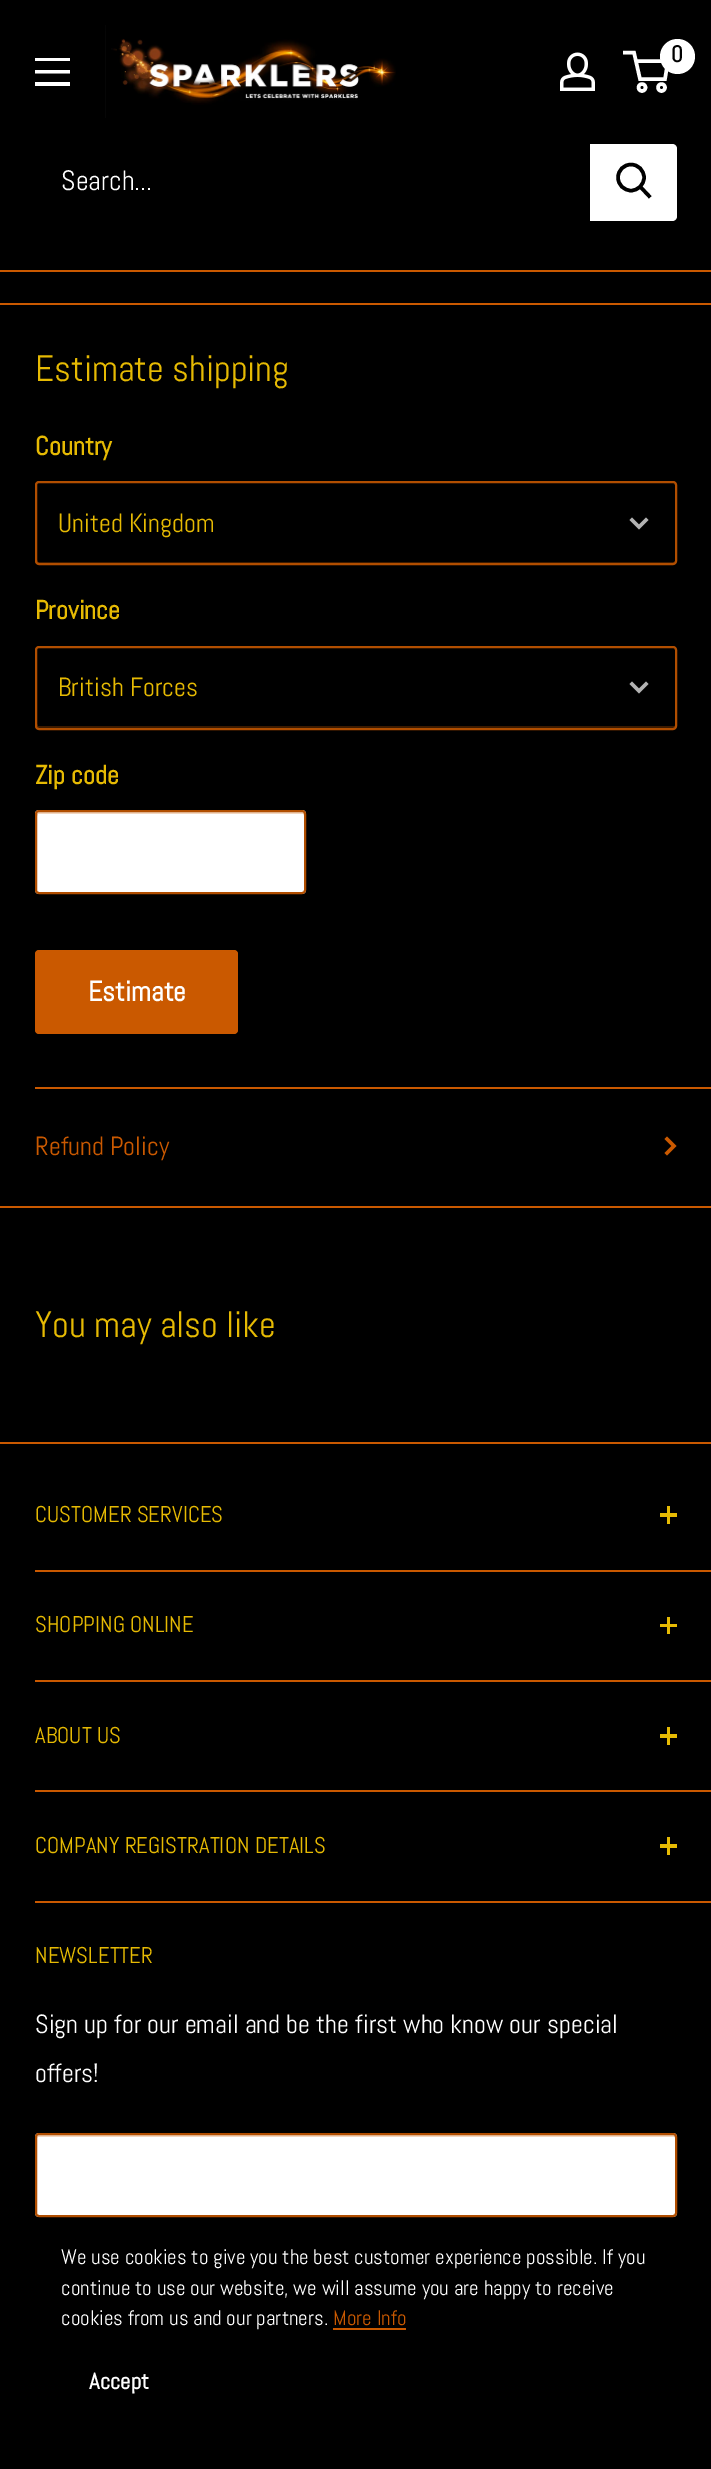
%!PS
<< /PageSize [711 2469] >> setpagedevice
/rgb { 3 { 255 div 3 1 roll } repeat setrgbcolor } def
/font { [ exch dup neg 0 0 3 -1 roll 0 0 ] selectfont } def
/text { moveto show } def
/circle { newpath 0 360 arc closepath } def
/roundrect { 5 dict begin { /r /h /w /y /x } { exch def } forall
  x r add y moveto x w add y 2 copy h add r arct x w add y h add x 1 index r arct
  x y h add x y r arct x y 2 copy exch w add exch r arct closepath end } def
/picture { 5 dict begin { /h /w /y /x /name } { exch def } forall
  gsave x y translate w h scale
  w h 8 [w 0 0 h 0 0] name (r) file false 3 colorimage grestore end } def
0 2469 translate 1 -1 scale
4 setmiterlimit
0 0 0 rgb
0 0 711 2469 rectfill
(img_01.rgb) 105 25 291 93 picture
(img_02.rgb) 560 52 35 39 picture
255 255 255 rgb
3.5 setlinewidth
642 87.5 3.5 circle stroke
661.5 87.5 3.5 circle stroke
636 61 moveto 32 0 rlineto -3 18 rlineto -25 0 rlineto -6 -26.5 rlineto -11 0 rlineto stroke
677.5 56.5 17.5 circle fill
35 82 moveto 35 0 rlineto 0 4 rlineto -35 0 rlineto closepath 35 58 moveto 35 0 rlineto 0 3 rlineto -35 0 rlineto closepath 35 70 moveto 35 0 rlineto 0 3.5 rlineto -35 0 rlineto closepath eofill
590 144 moveto 82 0 rlineto 3 0 5 2 5 5 rcurveto 0 67 rlineto 0 3 -2 5 -5 5 rcurveto -82 0 rlineto closepath fill
0 0 0 rgb
2 setlinecap
649 196 moveto -8.5 -9 rlineto stroke
0 setlinecap
631 177.5 13 circle stroke
202 89 0 rgb
0 270 711 2 rectfill
0 303 711 2 rectfill
0 1206 711 2 rectfill
61 27 0 rgb
37 560 moveto 0 2 0 4 2 4 rcurveto 635 0 rlineto 2 -1 rlineto 0 -3 rlineto 0 1 -1 2 -2 2 rcurveto -636 0 rlineto closepath fill
177 78 0 rgb
2 setlinewidth
36 482 640 82 3 roundrect stroke
179 179 179 rgb
3.5 setlinewidth
2 setlinecap
646 520 moveto -7 7 rlineto -7 -7 rlineto stroke
61 27 0 rgb
37 724 moveto 0 2 0 4 2 4 rcurveto 635 0 rlineto 2 -1 rlineto 0 -3 rlineto 0 1 -1 2 -2 2 rcurveto -636 0 rlineto closepath fill
177 78 0 rgb
2 setlinewidth
0 setlinecap
36 647 640 82 3 roundrect stroke
179 179 179 rgb
3.5 setlinewidth
2 setlinecap
646 684 moveto -7 7 rlineto -7 -7 rlineto stroke
255 255 255 rgb
35 810 271 84 4 roundrect fill
242 214 191 rgb
38 814 moveto 265 0 rlineto 2 0 1 9 1 15 rcurveto 0 64 rlineto 1 -1 1 -1 1 -2 rcurveto 0 -77 rlineto 0 -1 -1 -2 -2 -2 rcurveto -264 0 rlineto -1 0 -2 1 -2 2 rcurveto 0 2 rlineto closepath fill
177 78 0 rgb
2 setlinewidth
0 setlinecap
36 811 269 82 3 roundrect stroke
202 89 0 rgb
35 950 203 84 4 roundrect fill
35 1087 676 2 rectfill
3.5 setlinewidth
2 setlinecap
667 1139 moveto 7 7 rlineto -7 7 rlineto stroke
0 1442 711 2 rectfill
35 1570 676 2 rectfill
230 186 3 rgb
667 1506 3 18 rectfill
660 1513 17 4 rectfill
202 89 0 rgb
35 1680 676 2 rectfill
230 186 3 rgb
667 1617 3 17 rectfill
660 1624 17 3 rectfill
202 89 0 rgb
35 1790 676 2 rectfill
230 186 3 rgb
667 1727 3 18 rectfill
660 1734 17 4 rectfill
202 89 0 rgb
35 1901 676 2 rectfill
230 186 3 rgb
667 1837 3 18 rectfill
660 1844 17 4 rectfill
255 255 255 rgb
35 2133 642 84 4 roundrect fill
242 214 191 rgb
38 2137 moveto 636 0 rlineto 2 1 rlineto 0 -1 0 -3 -2 -3 rcurveto -635 0 rlineto -2 0 -2 2 -2 3 rcurveto closepath fill
177 78 0 rgb
2 setlinewidth
0 setlinecap
36 2134 640 82 3 roundrect stroke
202 89 0 rgb
333 2328 73 2 rectfill
/Abel-Bold 23 font
0 0 0 rgb
(0) 671 62 text
/Abel-Regular 28 font
255 255 255 rgb
(Search...) 61 190 text
/Abel-Regular 36.75 font
230 186 3 rgb
(Estimate shipping) 35 381 text
/Abel-Bold 26.25 font
(Country) 35 455 text
/Abel-Regular 26.25 font
(United Kingdom) 58 532 text
/Abel-Bold 26.25 font
(Province) 35 619 text
/Abel-Regular 26.25 font
(British Forces) 58 696 text
/Abel-Bold 26.25 font
(Zip code) 35 784 text
/Abel-Bold 28 font
255 255 255 rgb
(Estimate) 88 1001 text
/Abel-Regular 26.25 font
202 89 0 rgb
(Refund Policy) 35 1155 text
/Abel-Regular 36.75 font
230 186 3 rgb
(You may also like) 35 1337 text
/Abel-Regular 22.75 font
(CUSTOMER SERVICES) 35 1522 text
(SHOPPING ONLINE) 35 1632 text
(ABOUT US) 35 1743 text
(COMPANY REGISTRATION DETAILS) 35 1853 text
(NEWSLETTER) 35 1963 text
/Abel-Regular 26.25 font
255 255 255 rgb
(Sign up for our email and be the first who know our special) 35 2033 text
(offers!) 35 2082 text
/Abel-Regular 21 font
(We use cookies to give you the best customer experience possible. If you) 61 2264 text
(continue to use our website, we will assume you are happy to receive) 61 2295 text
(cookies from us and our partners.) 61 2325 text
202 89 0 rgb
(More Info) 333 2325 text
/Abel-Bold 22.75 font
255 255 255 rgb
(Accept) 89 2389 text
showpage
